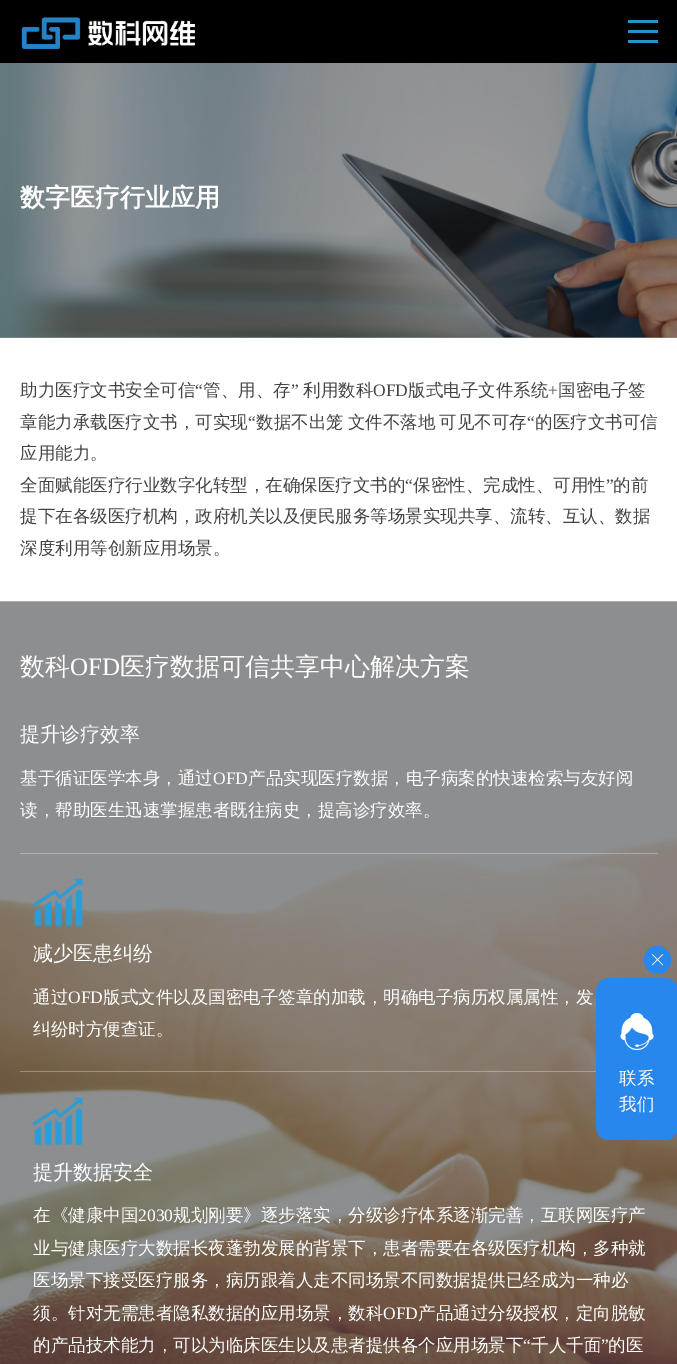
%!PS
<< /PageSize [677 1364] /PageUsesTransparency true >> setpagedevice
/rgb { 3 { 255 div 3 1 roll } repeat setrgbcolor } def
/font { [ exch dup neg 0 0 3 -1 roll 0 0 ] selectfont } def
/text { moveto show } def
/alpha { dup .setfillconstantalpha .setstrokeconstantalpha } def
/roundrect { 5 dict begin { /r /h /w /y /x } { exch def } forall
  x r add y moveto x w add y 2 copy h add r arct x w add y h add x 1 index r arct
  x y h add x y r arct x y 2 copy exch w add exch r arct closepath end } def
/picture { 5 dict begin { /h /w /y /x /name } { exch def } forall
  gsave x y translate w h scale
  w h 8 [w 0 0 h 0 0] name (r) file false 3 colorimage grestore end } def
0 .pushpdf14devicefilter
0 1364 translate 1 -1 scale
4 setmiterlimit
255 255 255 rgb
0 0 677 1364 rectfill
153 153 153 rgb
0 337 677 1 rectfill
0 0 0 rgb
0 0 677 63 rectfill
(img_01.rgb) 21 17 174 32 picture
40 147 203 rgb
628 20 30 3 rectfill
628 30 30 3 rectfill
628 40 30 3 rectfill
(img_02.rgb) 0 63 677 275 picture
(img_03.rgb) 0 601 677 763 picture
0.3 alpha
255 255 255 rgb
20 853 638 1 rectfill
20 1071 576 1 rectfill
1 alpha
(img_04.rgb) 32 878 51 49 picture
(img_05.rgb) 32 1097 51 48 picture
39 135 237 rgb
644 946 27 28 13.5 roundrect fill
(img_06.rgb) 651 954 13 12 picture
596 978 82 162 13 roundrect fill
(img_07.rgb) 620 1013 34 37 picture
/WenQuanYiZenHei-Bold 25 font
255 255 255 rgb
(数字医疗行业应用) 20 206 text
/WenQuanYiZenHei-Medium 17.5 font
67 67 67 rgb
(助力医疗文书安全可信) 20 396 text
/LiberationSerif-Regular 17.5 font
(“) 195 396 text
/WenQuanYiZenHei-Medium 17.5 font
(管、用、存) 203 396 text
/LiberationSerif-Regular 17.5 font
(”) 291 396 text
/WenQuanYiZenHei-Medium 17.5 font
(利用数科) 303 396 text
/LiberationSerif-Regular 17.5 font
(OFD) 373 396 text
/WenQuanYiZenHei-Medium 17.5 font
(版式电子文件系统) 408 396 text
/LiberationSerif-Regular 17.5 font
(+) 548 396 text
/WenQuanYiZenHei-Medium 17.5 font
(国密电子签) 558 396 text
(章能力承载医疗文书，可实现) 20 428 text
/LiberationSerif-Regular 17.5 font
(“) 248 428 text
/WenQuanYiZenHei-Medium 17.5 font
256 428 moveto -1 0 32 (数据不出笼 文件不落地 可见不可存) widthshow
/LiberationSerif-Regular 17.5 font
(“) 527 428 text
/WenQuanYiZenHei-Medium 17.5 font
(的医疗文书可信) 535 428 text
(应用能力。) 20 459 text
(全面赋能医疗行业数字化转型，在确保医疗文书的) 20 491 text
/LiberationSerif-Regular 17.5 font
(“) 405 491 text
/WenQuanYiZenHei-Medium 17.5 font
(保密性、完成性、可用性) 413 491 text
/LiberationSerif-Regular 17.5 font
(”) 606 491 text
/WenQuanYiZenHei-Medium 17.5 font
(的前) 613 491 text
(提下在各级医疗机构，政府机关以及便民服务等场景实现共享、流转、互认、数据) 20 522 text
(深度利用等创新应用场景。) 20 554 text
/WenQuanYiZenHei-Medium 25 font
255 255 255 rgb
(数科) 20 675 text
/LiberationSerif-Regular 25 font
(OFD) 70 675 text
/WenQuanYiZenHei-Medium 25 font
(医疗数据可信共享中心解决方案) 120 675 text
/WenQuanYiZenHei-Medium 20 font
(提升诊疗效率) 20 741 text
/WenQuanYiZenHei-Medium 17.5 font
(基于循证医学本身，通过) 20 784 text
/LiberationSerif-Regular 17.5 font
(OFD) 213 784 text
/WenQuanYiZenHei-Medium 17.5 font
(产品实现医疗数据，电子病案的快速检索与友好阅) 248 784 text
(读，帮助医生迅速掌握患者既往病史，提高诊疗效率。) 20 816 text
/WenQuanYiZenHei-Medium 20 font
(减少医患纠纷) 33 960 text
/WenQuanYiZenHei-Medium 17.5 font
(通过) 33 1003 text
/LiberationSerif-Regular 17.5 font
(OFD) 68 1003 text
/WenQuanYiZenHei-Medium 17.5 font
(版式文件以及国密电子签章的加载，明确电子病历权属属性，发) 103 1003 text
(纠纷时方便查证。) 33 1035 text
/WenQuanYiZenHei-Medium 20 font
(提升数据安全) 33 1179 text
/WenQuanYiZenHei-Medium 17.5 font
(在《健康中国) 33 1221 text
/LiberationSerif-Regular 17.5 font
(2030) 138 1221 text
/WenQuanYiZenHei-Medium 17.5 font
(规划刚要》逐步落实，分级诊疗体系逐渐完善，互联网医疗产) 173 1221 text
(业与健康医疗大数据长夜蓬勃发展的背景下，患者需要在各级医疗机构，多种就) 33 1254 text
(医场景下接受医疗服务，病历跟着人走不同场景不同数据提供已经成为一种必) 33 1286 text
(须。针对无需患者隐私数据的应用场景，数科) 33 1319 text
/LiberationSerif-Regular 17.5 font
(OFD) 383 1319 text
/WenQuanYiZenHei-Medium 17.5 font
(产品通过分级授权，定向脱敏) 418 1319 text
(的产品技术能力，可以为临床医生以及患者提供各个应用场景下) 33 1351 text
/LiberationSerif-Regular 17.5 font
(“) 523 1351 text
/WenQuanYiZenHei-Medium 17.5 font
(千人千面) 531 1351 text
/LiberationSerif-Regular 17.5 font
(”) 601 1351 text
/WenQuanYiZenHei-Medium 17.5 font
(的医) 608 1351 text
(联系) 619 1084 text
(我们) 619 1110 text
.poppdf14devicefilter showpage
